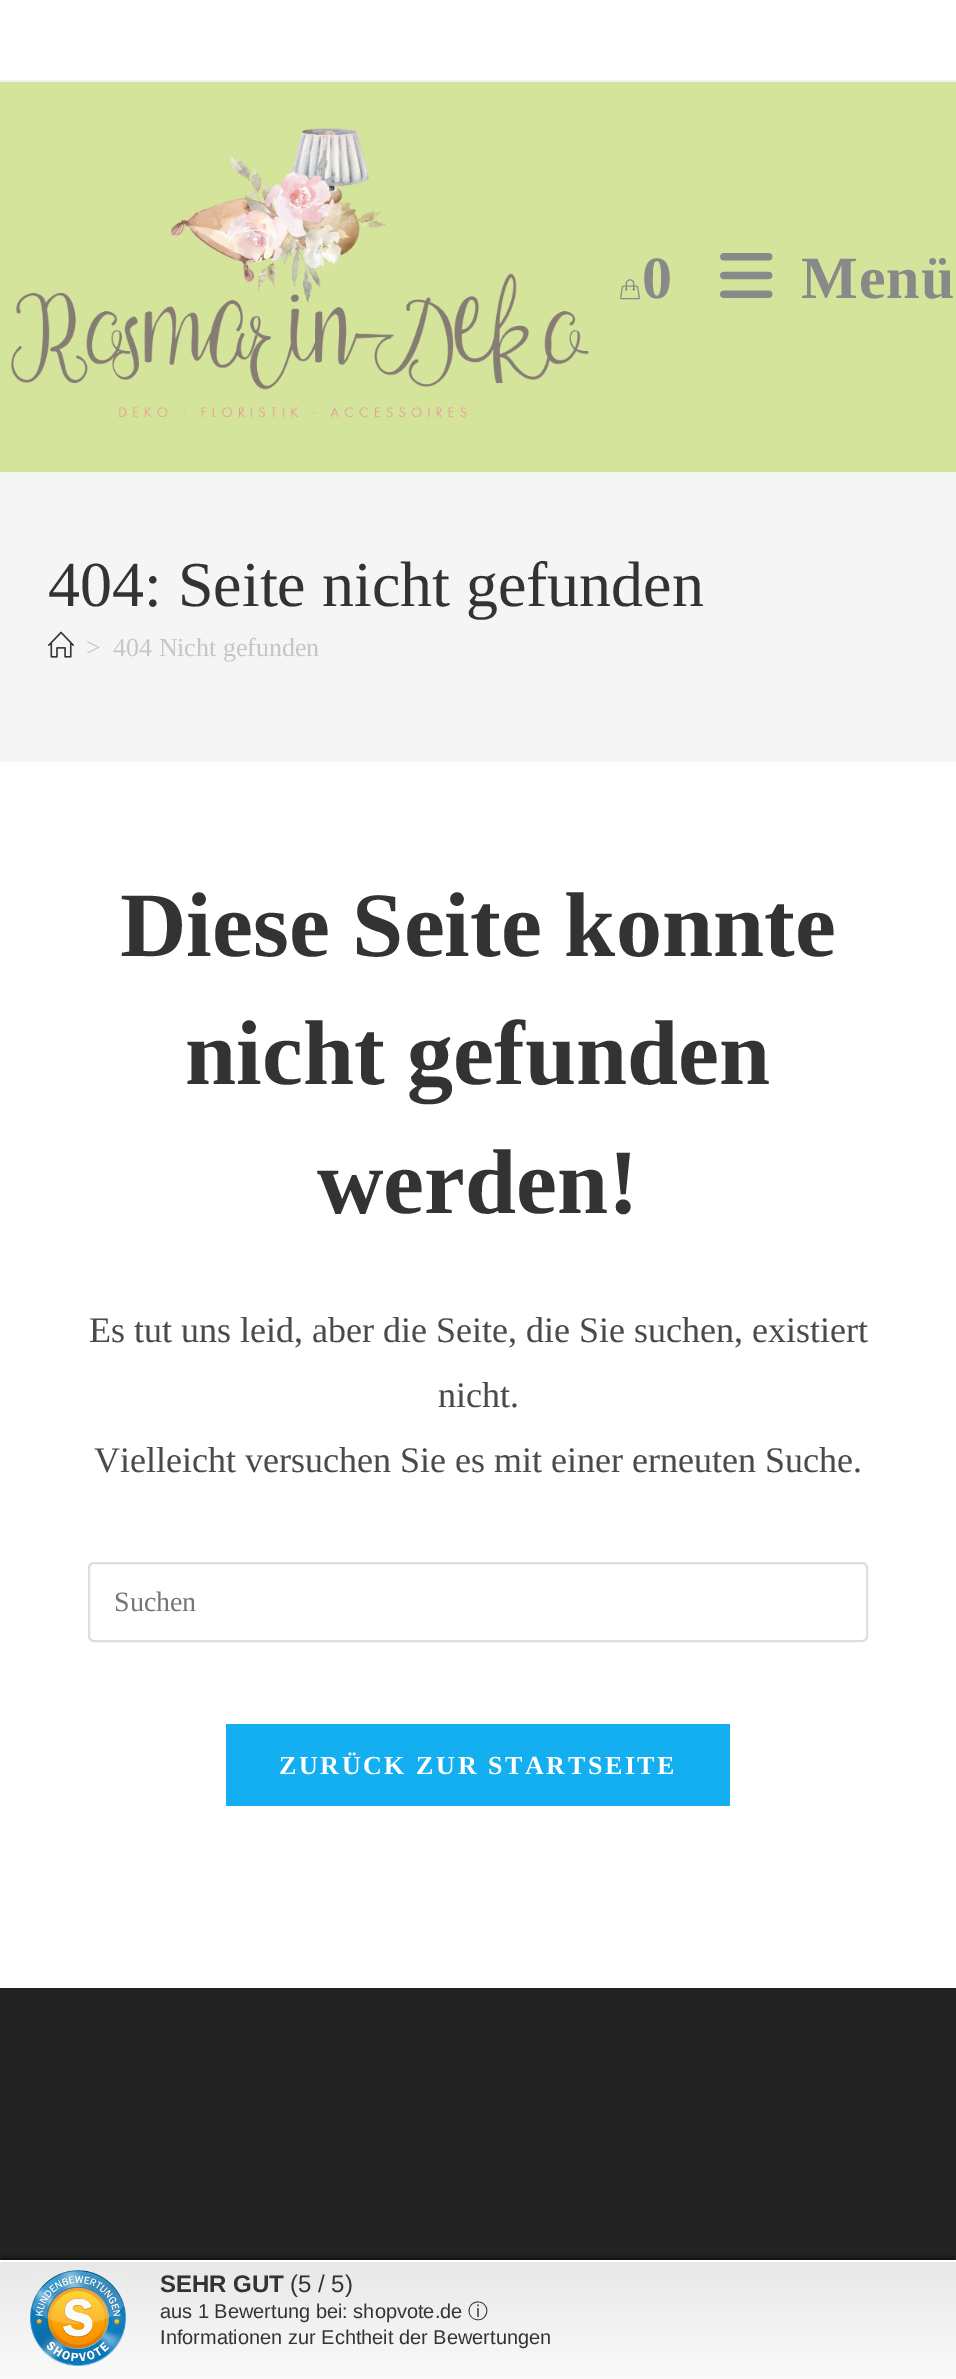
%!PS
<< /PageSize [956 2379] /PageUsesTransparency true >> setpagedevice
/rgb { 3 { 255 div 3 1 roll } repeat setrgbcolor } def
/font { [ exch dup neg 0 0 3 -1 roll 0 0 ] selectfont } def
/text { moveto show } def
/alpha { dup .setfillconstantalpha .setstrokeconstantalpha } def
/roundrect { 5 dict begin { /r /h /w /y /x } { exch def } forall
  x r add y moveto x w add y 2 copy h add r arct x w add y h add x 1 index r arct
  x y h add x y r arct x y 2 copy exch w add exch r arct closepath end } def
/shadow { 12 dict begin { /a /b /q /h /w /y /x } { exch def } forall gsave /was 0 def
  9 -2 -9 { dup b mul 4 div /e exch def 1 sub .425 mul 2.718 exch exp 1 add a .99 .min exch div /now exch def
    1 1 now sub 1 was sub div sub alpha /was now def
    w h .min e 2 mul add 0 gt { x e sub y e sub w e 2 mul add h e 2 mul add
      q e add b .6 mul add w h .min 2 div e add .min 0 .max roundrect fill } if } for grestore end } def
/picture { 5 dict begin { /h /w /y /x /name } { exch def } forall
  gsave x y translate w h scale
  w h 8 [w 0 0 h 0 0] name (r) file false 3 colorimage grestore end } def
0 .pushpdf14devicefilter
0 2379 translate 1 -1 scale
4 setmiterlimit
255 255 255 rgb
0 0 956 2379 rectfill
241 241 241 rgb
0 80 956 2 rectfill
213 228 155 rgb
0 82 956 390 rectfill
(img_01.rgb) 11 128 578 290 picture
(img_02.rgb) 620 279 20 21 picture
(img_03.rgb) 720 253 53 45 picture
245 245 245 rgb
0 472 956 290 rectfill
(img_04.rgb) 48 631 26 27 picture
221 221 221 rgb
2 setlinewidth
89 1563 778 78 5 roundrect stroke
19 175 240 rgb
226 1724 504 82 rectfill
34 34 34 rgb
0 1988 956 272 rectfill
0 0 0 rgb
2 2258 952 116 0 2 0.65 shadow
gsave 0 2262 moveto 956 0 rlineto 0 117 rlineto -956 0 rlineto closepath clip newpath
<< /ShadingType 2 /ColorSpace /DeviceRGB /Coords [478 2262 478 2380] /Extend [true true] /Function << /FunctionType 2 /Domain [0 1] /C0 [0.91 0.91 0.91] /C1 [0.98 0.98 0.98] /N 1 >> >> shfill grestore
255 255 255 rgb
0 2260 956 2 rectfill
(img_05.rgb) 30 2270 96 96 picture
/LiberationSerif-Bold 60 font
137 137 137 rgb
642 298 moveto 1 0 (0) ashow
801 298 moveto 1 0 (Menü) ashow
/LiberationSerif-Regular 64 font
51 51 51 rgb
(404: Seite nicht gefunden) 48 606 text
/LiberationSerif-Regular 26 font
198 198 198 rgb
(>) 86 656 text
(404 Nicht gefunden) 113 656 text
/LiberationSerif-Bold 92 font
51 51 51 rgb
(Diese Seite konnte) 120 956 text
(nicht gefunden) 185 1084 text
(werden!) 317 1213 text
/LiberationSerif-Regular 36 font
74 74 74 rgb
(Es tut uns leid, aber die Seite, die Sie suchen, existiert) 89 1342 text
(nicht.) 438 1407 text
(Vielleicht versuchen Sie es mit einer erneuten Suche.) 94 1472 text
/LiberationSerif-Regular 28 font
117 117 117 rgb
(Suchen) 114 1611 text
/LiberationSerif-Bold 26 font
255 255 255 rgb
279 1774 moveto 2.6 0 (ZURÜCK ZUR STARTSEITE) ashow
/LiberationSans-Bold 24 font
51 51 51 rgb
(SEHR GUT) 160 2292 text
/LiberationSans-Regular 24 font
(\(5 / 5\)) 290 2292 text
/LiberationSans-Regular 20 font
(aus 1 Bewertung bei: shopvote.de) 160 2318 text
/WenQuanYiZenHei-Medium 20 font
(ⓘ) 468 2318 text
/LiberationSans-Regular 20 font
(Informationen zur Echtheit der Bewertungen) 160 2344 text
.poppdf14devicefilter showpage
